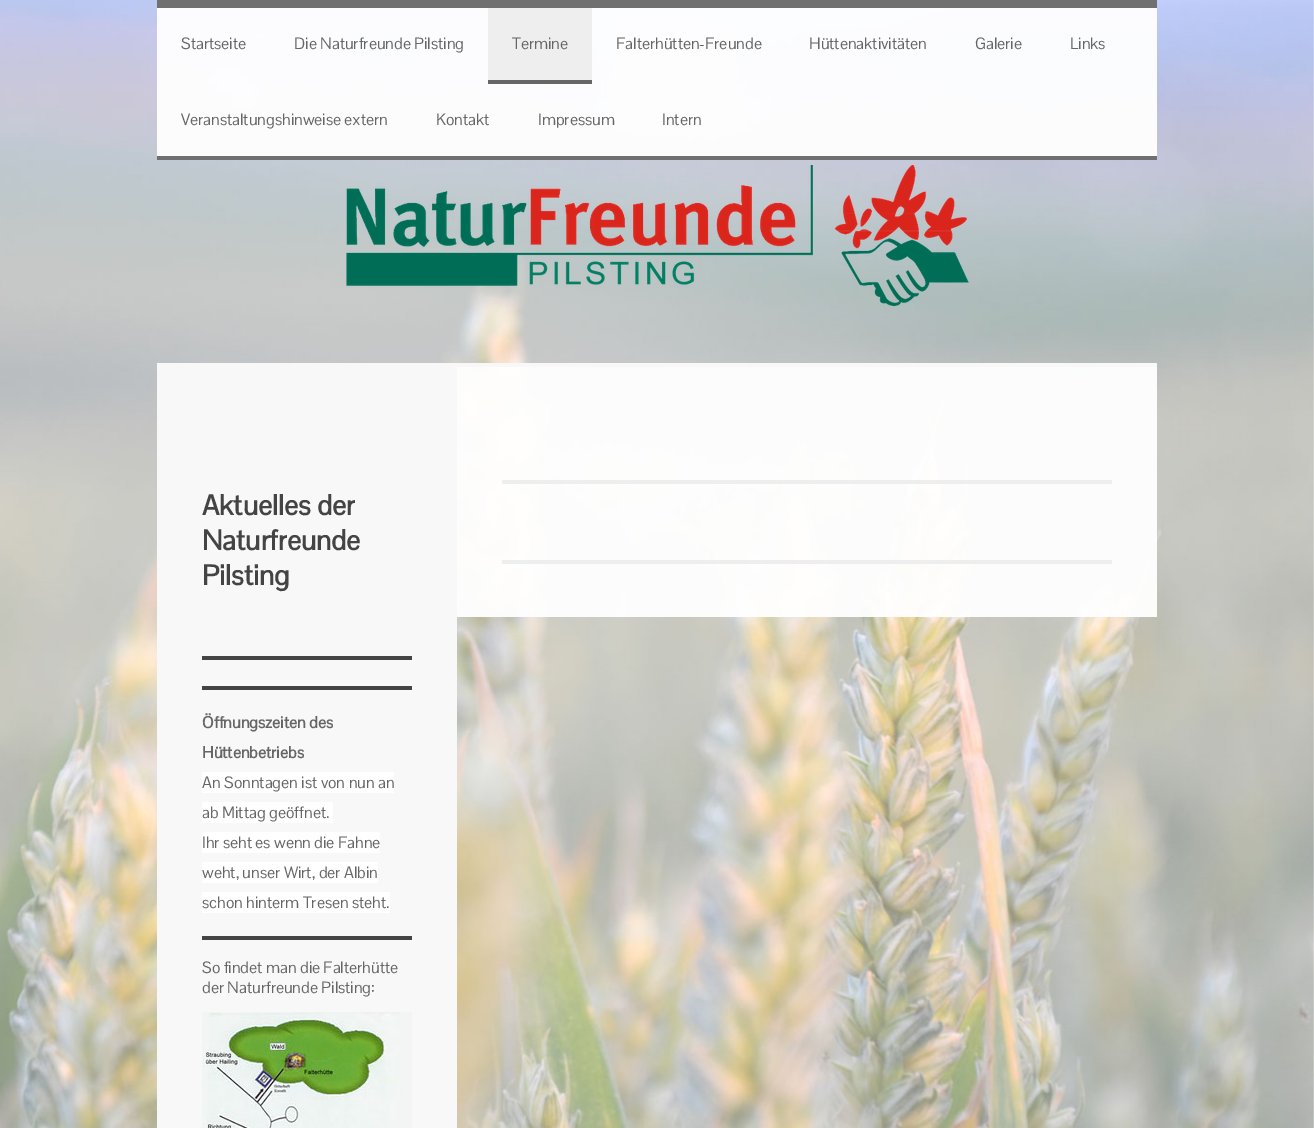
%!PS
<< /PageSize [1314 1128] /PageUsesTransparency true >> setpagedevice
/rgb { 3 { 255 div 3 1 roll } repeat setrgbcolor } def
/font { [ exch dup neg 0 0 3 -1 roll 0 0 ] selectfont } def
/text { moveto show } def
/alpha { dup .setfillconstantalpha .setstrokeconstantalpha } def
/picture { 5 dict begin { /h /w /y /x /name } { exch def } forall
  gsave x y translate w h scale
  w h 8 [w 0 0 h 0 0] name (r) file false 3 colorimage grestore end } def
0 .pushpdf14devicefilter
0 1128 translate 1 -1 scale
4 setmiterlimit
255 255 255 rgb
0 0 1314 1128 rectfill
(img_01.rgb) 0 0 1314 1128 picture
0.95 alpha
157 8 1000 148 rectfill
1 alpha
112 112 112 rgb
157 0 1000 8 rectfill
157 156 1000 4 rectfill
238 238 238 rgb
488 8 104 72 rectfill
102 102 102 rgb
488 80 104 4 rectfill
(img_02.rgb) 346 165 623 142 picture
248 248 248 rgb
157 363 300 765 rectfill
68 68 68 rgb
202 656 210 4 rectfill
202 686 210 4 rectfill
255 255 255 rgb
202 772 192 21 rectfill
202 802 131 21 rectfill
202 832 178 21 rectfill
202 862 176 21 rectfill
202 892 188 21 rectfill
68 68 68 rgb
202 936 210 4 rectfill
(img_03.rgb) 202 1012 210 116 picture
0.95 alpha
255 255 255 rgb
457 367 700 250 rectfill
1 alpha
248 248 248 rgb
457 363 700 4 rectfill
238 238 238 rgb
502 480 610 4 rectfill
502 560 610 4 rectfill
/PontanoSans-Regular 16 font
102 102 102 rgb
(Startseite) 181 49 text
(Die Naturfreunde Pilsting) 294 49 text
(Termine) 512 49 text
(Falterhütten-Freunde) 616 49 text
(Hüttenaktivitäten) 809 49 text
(Galerie) 975 49 text
(Links) 1070 49 text
(Veranstaltungshinweise extern) 181 125 text
(Kontakt) 436 125 text
(Impressum) 538 125 text
(Intern) 662 125 text
/PontanoSans-Bold 28 font
68 68 68 rgb
(Aktuelles der) 202 515 text
(Naturfreunde) 202 550 text
(Pilsting) 202 585 text
/PontanoSans-Bold 16 font
102 102 102 rgb
(Öffnungszeiten des) 202 728 text
(Hüttenbetriebs) 202 758 text
/PontanoSans-Regular 16 font
(An Sonntagen ist von nun an) 202 788 text
(ab Mittag geöffnet.) 202 818 text
(Ihr seht es wenn die Fahne) 202 848 text
(weht, unser Wirt, der Albin) 202 878 text
(schon hinterm Tresen steht.) 202 908 text
(So findet man die Falterhütte) 202 973 text
(der Naturfreunde Pilsting:) 202 993 text
.poppdf14devicefilter showpage
